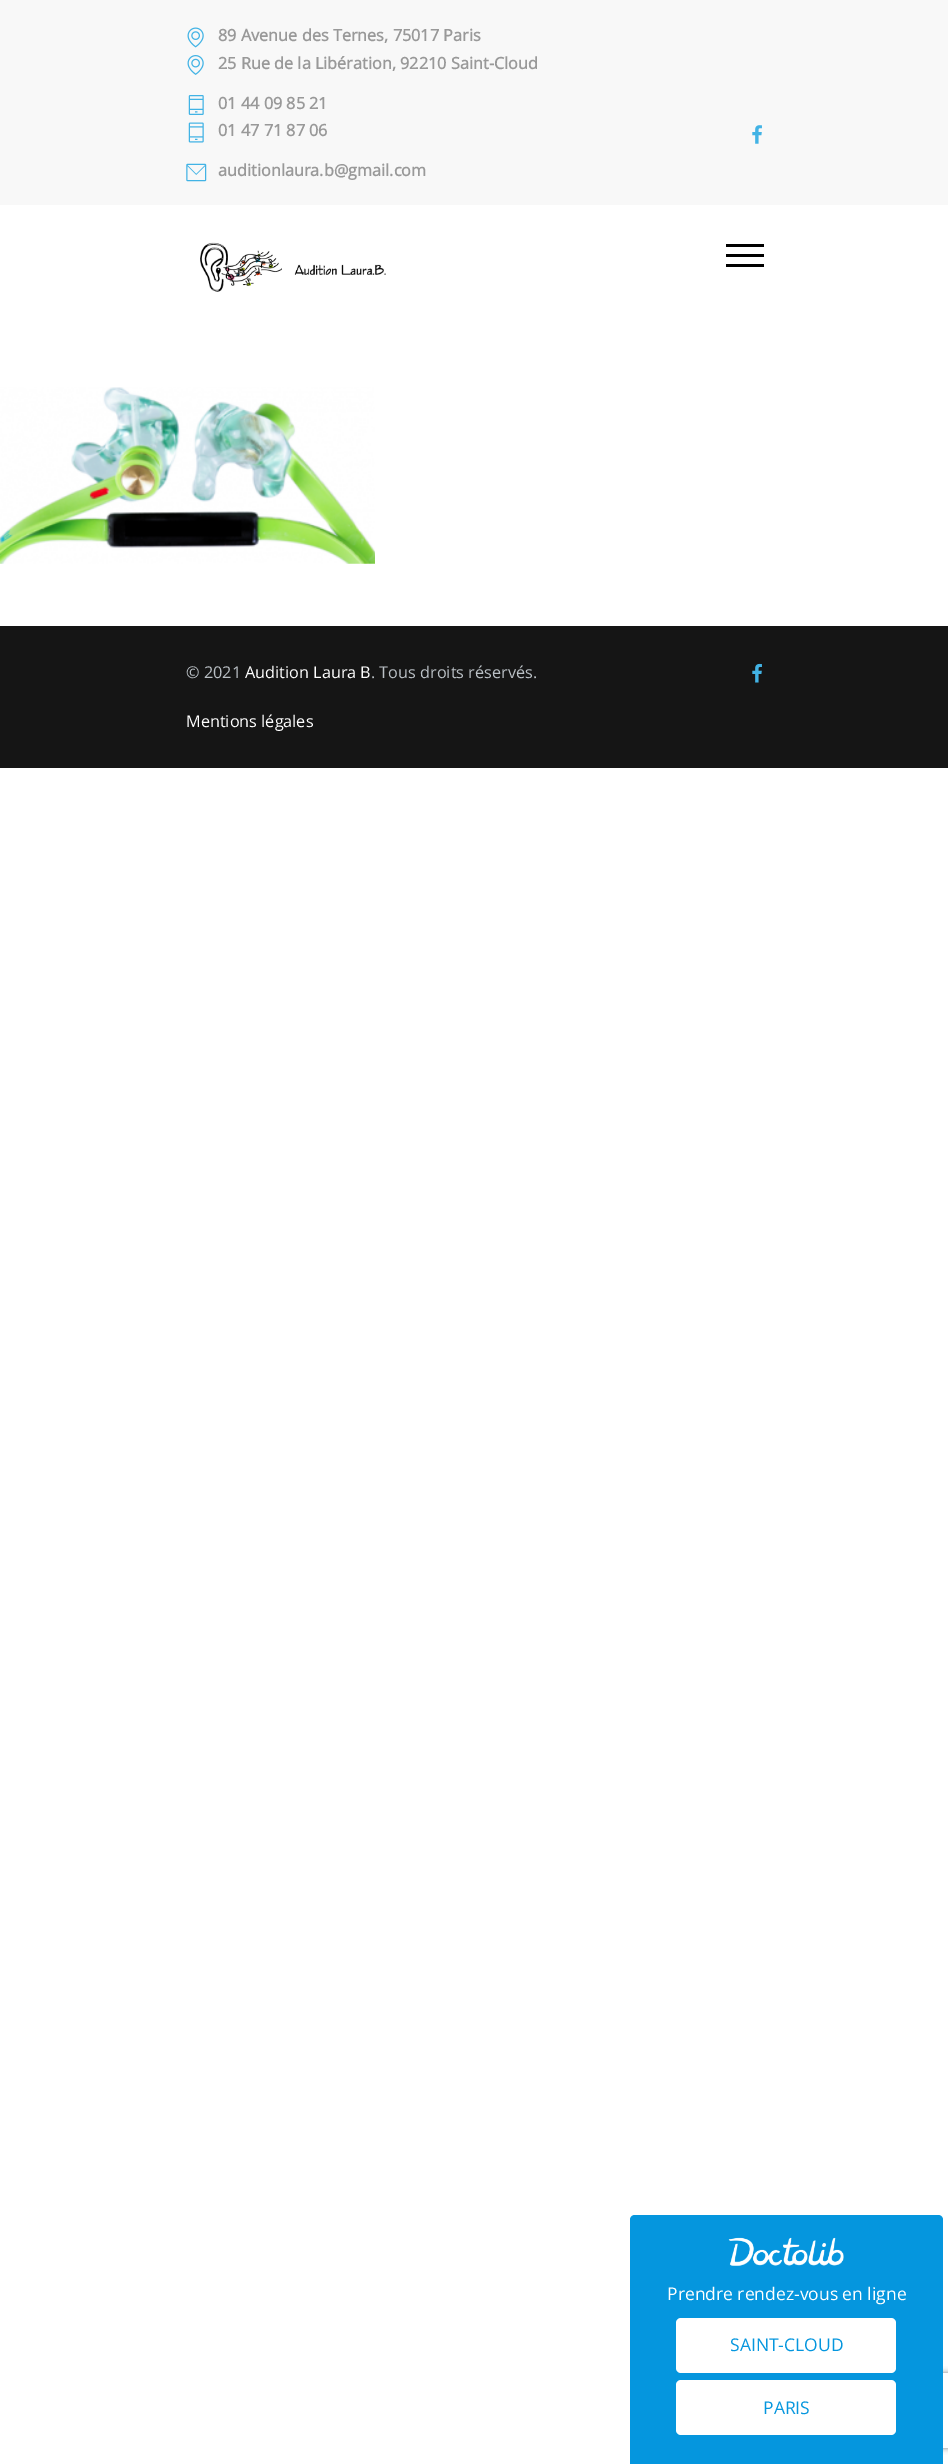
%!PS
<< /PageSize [948 2464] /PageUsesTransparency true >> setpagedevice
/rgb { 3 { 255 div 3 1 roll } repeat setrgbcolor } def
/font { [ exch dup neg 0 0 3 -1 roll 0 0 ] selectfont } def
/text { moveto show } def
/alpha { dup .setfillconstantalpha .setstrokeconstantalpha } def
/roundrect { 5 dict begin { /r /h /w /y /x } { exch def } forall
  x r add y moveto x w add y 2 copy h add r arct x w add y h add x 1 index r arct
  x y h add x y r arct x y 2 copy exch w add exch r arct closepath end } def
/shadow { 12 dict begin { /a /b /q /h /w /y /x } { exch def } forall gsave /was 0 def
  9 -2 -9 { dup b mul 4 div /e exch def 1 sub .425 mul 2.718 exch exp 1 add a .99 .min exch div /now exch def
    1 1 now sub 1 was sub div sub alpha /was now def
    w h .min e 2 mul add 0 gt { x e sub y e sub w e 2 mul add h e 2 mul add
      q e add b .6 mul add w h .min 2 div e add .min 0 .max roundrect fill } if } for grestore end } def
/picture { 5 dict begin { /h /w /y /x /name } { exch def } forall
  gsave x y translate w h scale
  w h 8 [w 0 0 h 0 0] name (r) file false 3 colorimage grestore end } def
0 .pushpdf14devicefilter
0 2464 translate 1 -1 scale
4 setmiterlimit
255 255 255 rgb
0 0 948 2464 rectfill
248 248 248 rgb
0 0 948 205 rectfill
(img_01.rgb) 187 27 17 21 picture
(img_02.rgb) 187 55 17 20 picture
(img_03.rgb) 188 95 16 20 picture
(img_04.rgb) 188 122 16 21 picture
(img_05.rgb) 186 163 21 19 picture
(img_06.rgb) 752 125 10 19 picture
(img_07.rgb) 200 242 186 50 picture
0 0 0 rgb
726 244 38 3 rectfill
726 254 38 3 rectfill
726 264 38 3 rectfill
(img_08.rgb) 0 387 375 177 picture
21 21 21 rgb
0 626 948 142 rectfill
(img_09.rgb) 752 663 10 20 picture
gsave
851 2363 moveto 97 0 rlineto 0 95 rlineto -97 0 rlineto closepath 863.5 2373 moveto 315 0 rlineto 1.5 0 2.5 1 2.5 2.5 rcurveto 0 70 rlineto 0 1.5 -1 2.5 -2.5 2.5 rcurveto -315 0 rlineto -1.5 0 -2.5 -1 -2.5 -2.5 rcurveto 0 -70 rlineto 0 -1.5 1 -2.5 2.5 -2.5 rcurveto closepath eoclip newpath
128 128 128 rgb
861 2373 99 75 2.5 3 1 shadow
grestore
5 150 222 rgb
635 2215 moveto 303 0 rlineto 3 0 5 2 5 5 rcurveto 0 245 rlineto -313 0 rlineto 0 -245 rlineto 0 -3 2 -5 5 -5 rcurveto closepath fill
(img_10.rgb) 728 2237 116 29 picture
255 255 255 rgb
676 2318 220 55 5 roundrect fill
676 2380 220 55 5 roundrect fill
/OpenSans-Bold 16.25 font
153 153 153 rgb
(89 Avenue des Ternes, 75017 Paris) 218 41 text
(25 Rue de la Libération, 92210 Saint-Cloud) 218 69 text
(01 44 09 85 21) 218 109 text
(01 47 71 87 06) 218 136 text
(auditionlaura.b@gmail.com) 218 176 text
/OpenSans-Regular 16.25 font
186 192 197 rgb
(© 2021) 186 678 text
255 255 255 rgb
(Audition Laura B) 245 678 text
186 192 197 rgb
(. Tous droits réservés.) 371 678 text
255 255 255 rgb
(Mentions légales) 186 727 text
/OpenSans-Regular 17.5 font
(Prendre rendez-vous en ligne) 667 2300 text
5 150 222 rgb
(SAINT-CLOUD) 730 2351 text
(PARIS) 763 2414 text
.poppdf14devicefilter showpage
